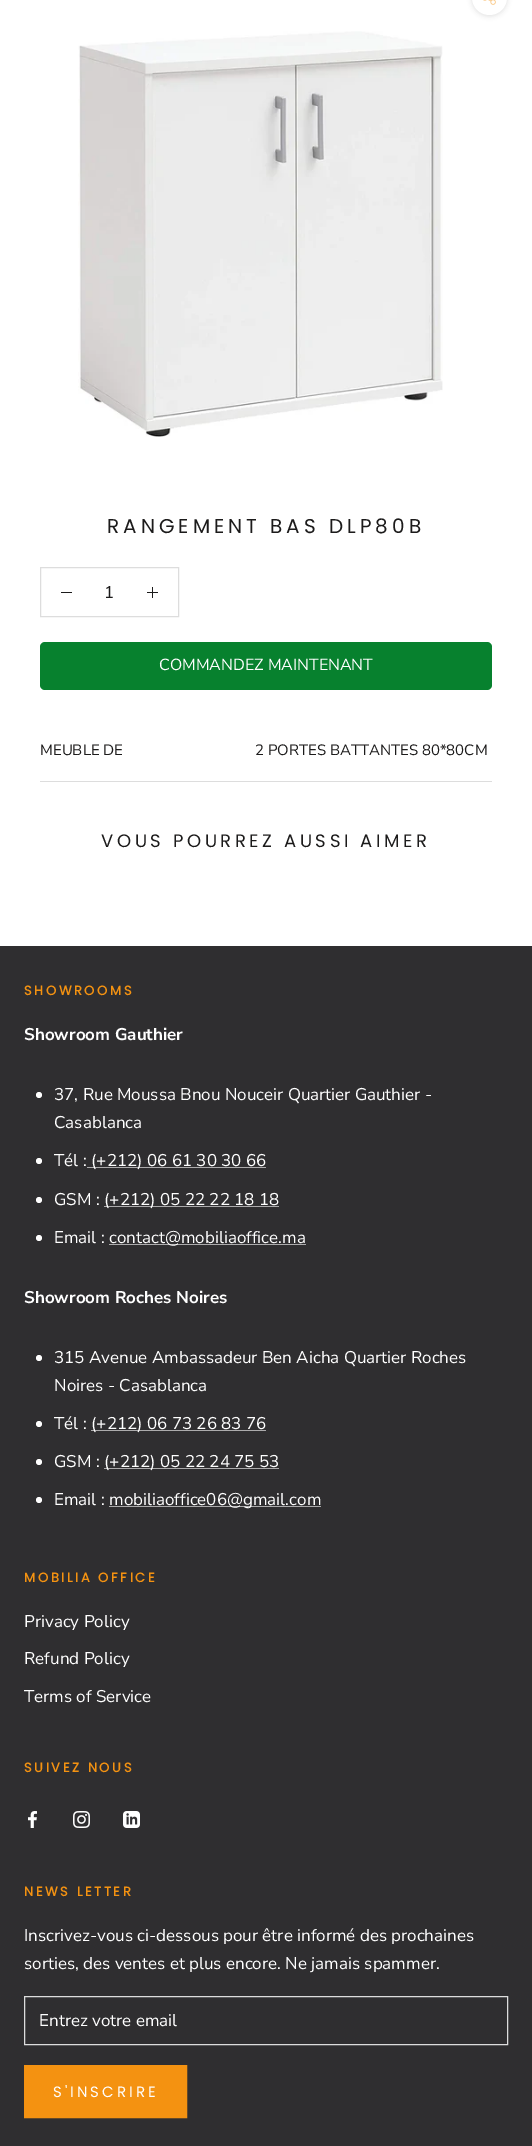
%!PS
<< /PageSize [532 2146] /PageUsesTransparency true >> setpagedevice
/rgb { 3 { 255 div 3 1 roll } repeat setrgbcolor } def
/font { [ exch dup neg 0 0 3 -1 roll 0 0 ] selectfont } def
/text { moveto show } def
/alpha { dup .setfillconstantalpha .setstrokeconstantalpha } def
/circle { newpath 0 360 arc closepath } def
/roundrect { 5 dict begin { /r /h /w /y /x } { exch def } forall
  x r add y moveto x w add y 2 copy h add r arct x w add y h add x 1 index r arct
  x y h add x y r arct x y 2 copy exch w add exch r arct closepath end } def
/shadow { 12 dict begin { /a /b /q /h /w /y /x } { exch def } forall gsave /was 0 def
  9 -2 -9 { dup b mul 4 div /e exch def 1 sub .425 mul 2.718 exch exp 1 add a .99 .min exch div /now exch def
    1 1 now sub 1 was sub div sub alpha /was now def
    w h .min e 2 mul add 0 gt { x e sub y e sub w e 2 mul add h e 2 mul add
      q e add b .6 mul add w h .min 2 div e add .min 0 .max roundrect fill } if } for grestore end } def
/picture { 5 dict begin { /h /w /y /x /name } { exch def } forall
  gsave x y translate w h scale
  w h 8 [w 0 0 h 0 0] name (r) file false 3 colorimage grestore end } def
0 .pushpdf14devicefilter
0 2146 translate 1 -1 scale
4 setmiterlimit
255 255 255 rgb
0 0 532 2146 rectfill
54 54 54 rgb
472 -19 35 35 17.5 2.5 0.15 shadow
255 255 255 rgb
472 -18 35 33 17.5 roundrect fill
(img_01.rgb) 483 0 13 5 picture
(img_02.rgb) 78 31 365 406 picture
221 221 221 rgb
40.5 567.5 138 49 rectstroke
28 27 27 rgb
61 592 11 1 rectfill
152 587 1 11 rectfill
147 592 11 1 rectfill
7 129 46 rgb
40 642 452 48 5 roundrect fill
221 221 221 rgb
40 781 452 1 rectfill
47 46 48 rgb
0 946 532 1200 rectfill
255 255 255 rgb
39 1095 3 circle fill
39 1161 3 circle fill
172 171 172 rgb
87 1167 179 1 rectfill
255 255 255 rgb
39 1200 3 circle fill
172 171 172 rgb
104 1206 175 1 rectfill
255 255 255 rgb
39 1238 3 circle fill
172 171 172 rgb
109 1244 197 1 rectfill
255 255 255 rgb
39 1358 3 circle fill
39 1424 3 circle fill
172 171 172 rgb
91 1430 175 1 rectfill
255 255 255 rgb
39 1462 3 circle fill
172 171 172 rgb
104 1468 175 1 rectfill
255 255 255 rgb
39 1500 3 circle fill
172 171 172 rgb
109 1506 212 1 rectfill
(img_03.rgb) 28 1811 9 17 picture
(img_04.rgb) 73 1811 17 17 picture
(img_05.rgb) 123 1811 17 17 picture
221 221 221 rgb
24.5 1996.5 483 48 rectstroke
244 146 17 rgb
24.5 2065.5 162 52 rectstroke
25 2066 161 51 rectfill
/Poppins-Regular 20 font
28 27 27 rgb
107 533 moveto 4 0 (RANGEMENT BAS DLP80B) ashow
/NunitoSans-Regular 17 font
(1) 104 598 text
/NunitoSans-Regular 16 font
255 255 255 rgb
(COMMANDEZ MAINTENANT) 159 670 text
/NunitoSans-Regular 15 font
28 27 27 rgb
(MEUBLE DE) 40 755 text
(2 PORTES BATTANTES 80*80CM) 255 755 text
/Poppins-Regular 18 font
101 847 moveto 3.6 0 (VOUS POURREZ AUSSI AIMER) ashow
/Poppins-Bold 13 font
244 146 17 rgb
24 995 moveto 2.6 0 (SHOWROOMS) ashow
/NunitoSans-Bold 17 font
255 255 255 rgb
(Showroom Gauthier) 24 1040 text
/NunitoSans-Regular 17 font
(37, Rue Moussa Bnou Nouceir Quartier Gauthier -) 54 1100 text
(Casablanca) 54 1128 text
(Tél :) 54 1166 text
(\(+212\) 06 61 30 30 66) 91 1166 text
(GSM :) 54 1205 text
(\(+212\) 05 22 22 18 18) 104 1205 text
(Email :) 54 1243 text
(contact@mobiliaoffice.ma) 109 1243 text
/NunitoSans-Bold 17 font
(Showroom Roches Noires) 24 1303 text
/NunitoSans-Regular 17 font
(315 Avenue Ambassadeur Ben Aicha Quartier Roches) 54 1363 text
(Noires - Casablanca) 54 1391 text
(Tél :) 54 1429 text
(\(+212\) 06 73 26 83 76) 91 1429 text
(GSM :) 54 1467 text
(\(+212\) 05 22 24 75 53) 104 1467 text
(Email :) 54 1505 text
(mobiliaoffice06@gmail.com) 109 1505 text
/Poppins-Bold 13 font
244 146 17 rgb
24 1582 moveto 2.6 0 (MOBILIA OFFICE) ashow
/NunitoSans-Regular 17 font
255 255 255 rgb
(Privacy Policy) 24 1627 text
(Refund Policy) 24 1664 text
(Terms of Service) 24 1702 text
/Poppins-Bold 13 font
244 146 17 rgb
24 1772 moveto 2.6 0 (SUIVEZ NOUS) ashow
24 1896 moveto 2.6 0 (NEWS LETTER) ashow
/NunitoSans-Regular 17 font
255 255 255 rgb
(Inscrivez-vous ci-dessous pour être informé des prochaines) 24 1941 text
(sorties, des ventes et plus encore. Ne jamais spammer.) 24 1969 text
(Entrez votre email) 39 2026 text
/Poppins-Regular 15 font
53 2097 moveto 3 0 (S'INSCRIRE) ashow
.poppdf14devicefilter showpage
